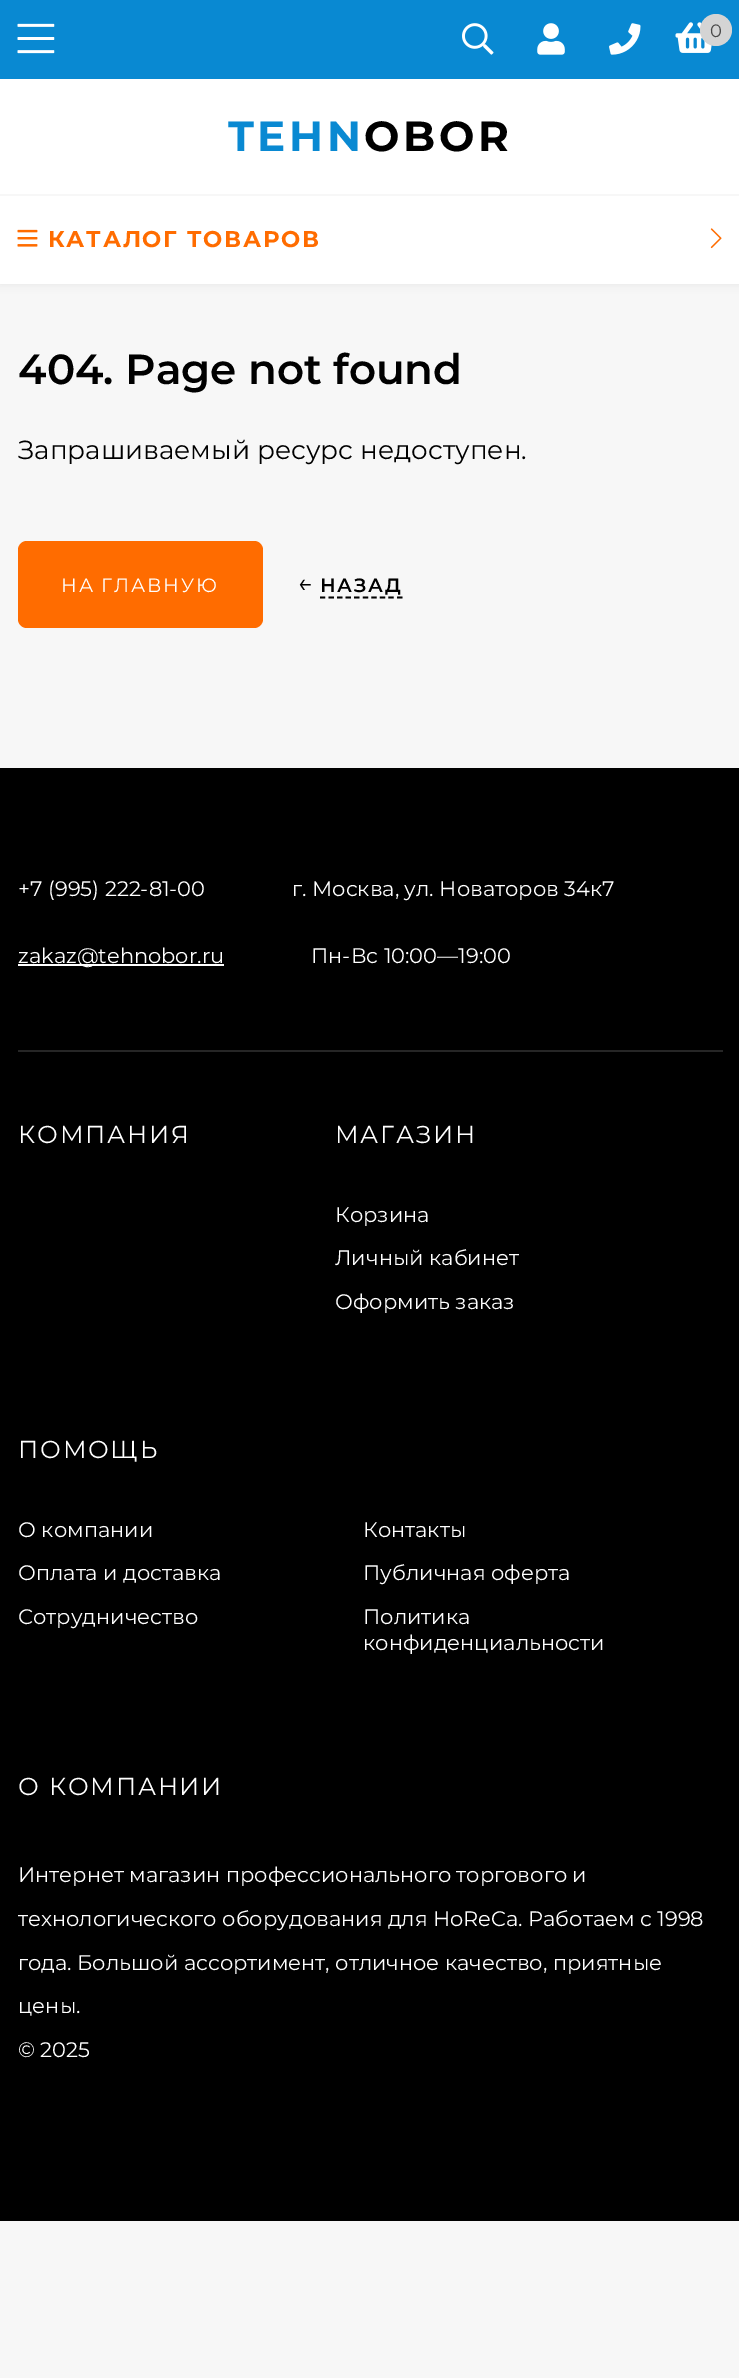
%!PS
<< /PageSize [739 2378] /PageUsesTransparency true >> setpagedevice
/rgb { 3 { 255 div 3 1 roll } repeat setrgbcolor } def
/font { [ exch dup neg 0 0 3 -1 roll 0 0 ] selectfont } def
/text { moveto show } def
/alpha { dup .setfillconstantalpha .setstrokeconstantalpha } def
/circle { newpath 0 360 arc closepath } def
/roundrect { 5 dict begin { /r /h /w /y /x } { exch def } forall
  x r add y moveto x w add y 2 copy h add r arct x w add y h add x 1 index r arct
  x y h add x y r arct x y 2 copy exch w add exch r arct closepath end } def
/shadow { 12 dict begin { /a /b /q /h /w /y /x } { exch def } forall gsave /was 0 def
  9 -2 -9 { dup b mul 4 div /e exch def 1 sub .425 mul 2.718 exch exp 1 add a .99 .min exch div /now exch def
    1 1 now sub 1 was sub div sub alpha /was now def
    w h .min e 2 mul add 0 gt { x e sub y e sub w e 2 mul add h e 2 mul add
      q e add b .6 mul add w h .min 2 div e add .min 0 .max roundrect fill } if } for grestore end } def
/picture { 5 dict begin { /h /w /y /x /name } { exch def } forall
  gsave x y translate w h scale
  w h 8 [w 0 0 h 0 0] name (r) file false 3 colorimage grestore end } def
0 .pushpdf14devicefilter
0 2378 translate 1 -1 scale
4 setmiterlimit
247 247 247 rgb
0 0 739 2378 rectfill
64 64 64 rgb
0 0 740 284 0 4.5 0.1 shadow
9 137 210 rgb
0 0 739 79 rectfill
(img_01.rgb) 17 23 38 31 picture
(img_02.rgb) 462 23 32 32 picture
(img_03.rgb) 537 23 28 32 picture
(img_04.rgb) 609 23 32 32 picture
(img_05.rgb) 675 22 37 31 picture
212 212 212 rgb
716 30 16 circle fill
255 255 255 rgb
0 79 739 115 rectfill
0 196 739 88 rectfill
247 247 247 rgb
0 194 739 2 rectfill
(img_06.rgb) 17 229 21 18 picture
(img_07.rgb) 710 228 12 21 picture
255 108 0 rgb
18 541 245 87 9 roundrect fill
0 0 0 rgb
1.8 setlinewidth
[5.25 3.31] 0 setdash
320 597.5 moveto 82.5 0 rlineto stroke
0 768 739 1453 rectfill
38 38 38 rgb
18 1050 705 2 rectfill
255 255 255 rgb
18 964 206 2 rectfill
/Montserrat-Regular 18 font
74 74 74 rgb
(0) 710 37 text
/Montserrat-Bold 42 font
9 137 210 rgb
228 151 moveto 3.5 0 (TEHN) ashow
0 0 0 rgb
364 151 moveto 3.5 0 (OBOR) ashow
/Montserrat-Bold 22.75 font
255 108 0 rgb
48 247 moveto 1.75 0 (КАТАЛОГ ТОВАРОВ) ashow
/Montserrat-SemiBold 42 font
0 0 0 rgb
(404. Page not found) 18 384 text
/Montserrat-Regular 26.25 font
(Запрашиваемый ресурс недоступен.) 18 459 text
/Montserrat-Regular 19.25 font
255 255 255 rgb
61 592 moveto 1.75 0 (НА ГЛАВНУЮ) ashow
/Montserrat-Regular 26.25 font
0 0 0 rgb
(←) 297 592 text
/Montserrat-SemiBold 19.25 font
320 592 moveto 1.75 0 (НАЗАД) ashow
/Montserrat-Regular 21 font
255 255 255 rgb
(+7 \(995\) 222-81-00) 18 896 text
(г. Москва, ул. Новаторов 34к7) 292 896 text
(zakaz@tehnobor.ru) 18 963 text
(Пн-Вс 10:00—19:00) 311 963 text
/Montserrat-Regular 24.5 font
18 1143 moveto 1.75 0 (КОМПАНИЯ) ashow
335 1143 moveto 1.75 0 (МАГАЗИН) ashow
/Montserrat-Regular 21 font
(Корзина) 335 1222 text
(Личный кабинет) 335 1265 text
(Оформить заказ) 335 1309 text
/Montserrat-Regular 24.5 font
18 1458 moveto 1.75 0 (ПОМОЩЬ) ashow
/Montserrat-Regular 21 font
(О компании) 18 1537 text
(Контакты) 363 1537 text
(Оплата и доставка) 18 1580 text
(Публичная оферта) 363 1580 text
(Сотрудничество) 18 1624 text
(Политика) 363 1624 text
(конфиденциальности) 363 1650 text
/Montserrat-Regular 24.5 font
18 1795 moveto 1.75 0 (О КОМПАНИИ) ashow
/Montserrat-Regular 21 font
(Интернет магазин профессионального торгового и) 18 1882 text
(технологического оборудования для HoReCa. Работаем с 1998) 18 1926 text
(года. Большой ассортимент, отличное качество, приятные) 18 1970 text
(цены.) 18 2013 text
(© 2025) 18 2057 text
.poppdf14devicefilter showpage
